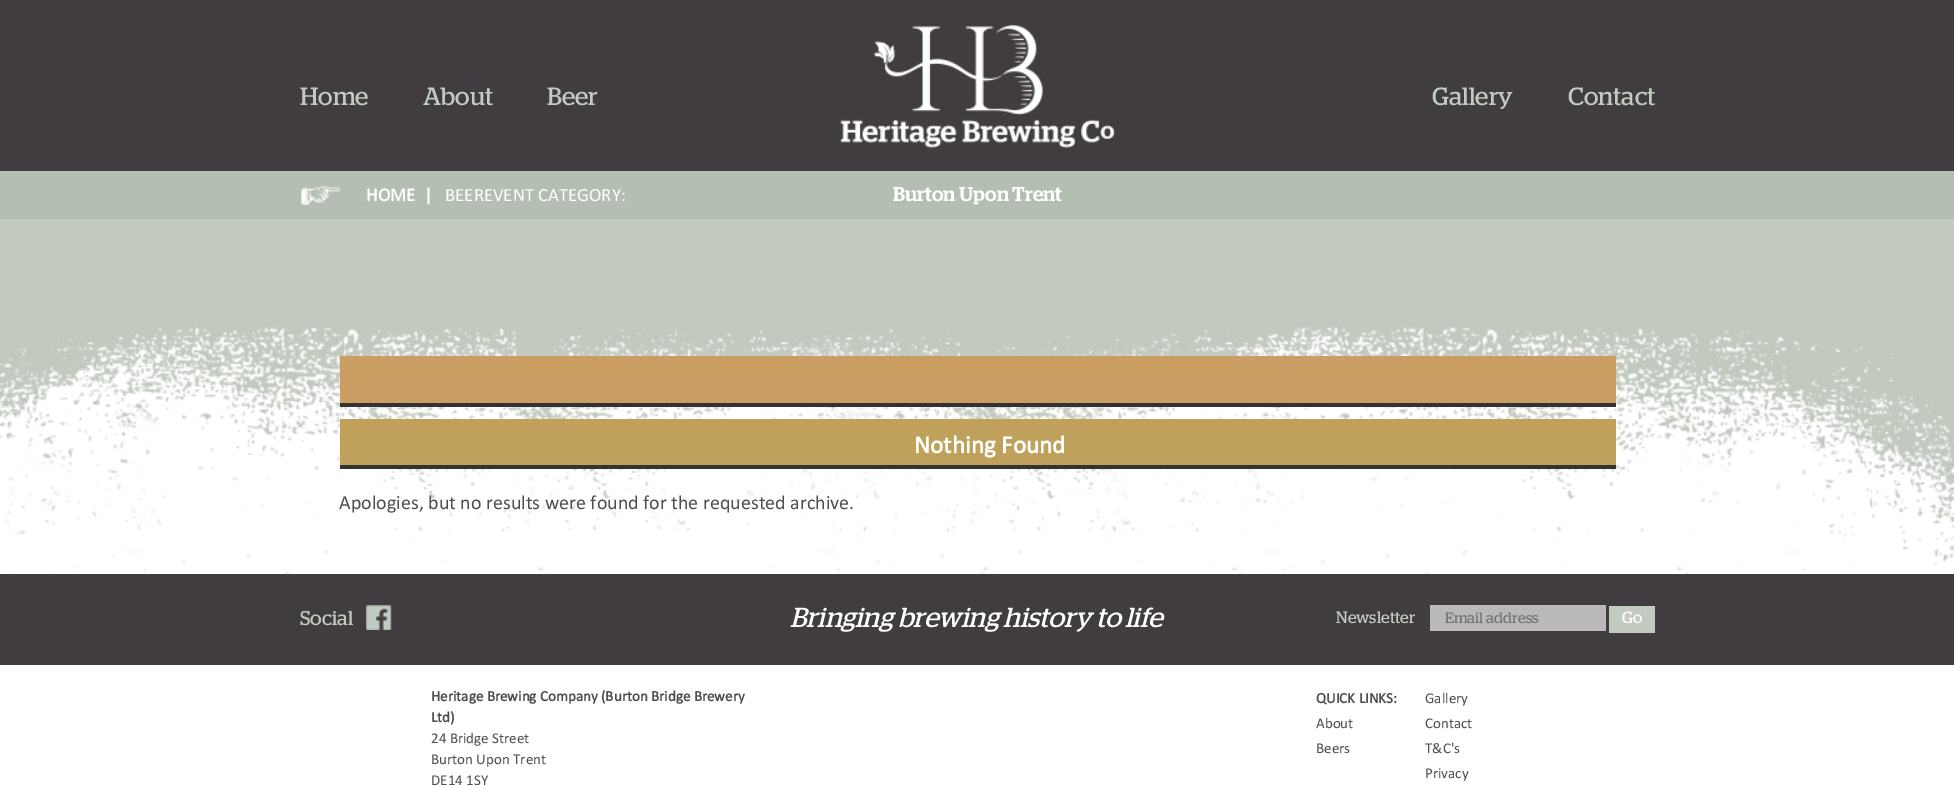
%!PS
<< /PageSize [1954 785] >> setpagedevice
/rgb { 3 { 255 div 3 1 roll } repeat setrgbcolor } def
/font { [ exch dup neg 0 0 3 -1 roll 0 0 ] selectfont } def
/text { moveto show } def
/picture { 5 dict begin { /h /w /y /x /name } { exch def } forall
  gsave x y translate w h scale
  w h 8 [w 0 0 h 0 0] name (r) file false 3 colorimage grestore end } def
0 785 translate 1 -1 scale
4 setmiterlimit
255 255 255 rgb
0 0 1954 785 rectfill
65 60 63 rgb
0 0 1954 171 rectfill
(img_01.rgb) 840 25 275 123 picture
180 190 178 rgb
0 171 1954 48 rectfill
(img_02.rgb) 301 186 40 19 picture
(img_03.rgb) 0 219 1954 355 picture
202 157 99 rgb
340 356 1276 47 rectfill
51 51 51 rgb
340 403 1276 4 rectfill
191 161 91 rgb
340 419 1276 46 rectfill
51 51 51 rgb
340 465 1276 4 rectfill
65 60 63 rgb
0 574 1954 91 rectfill
(img_04.rgb) 366 605 26 25 picture
186 184 185 rgb
1430 605 176 26 rectfill
194 203 192 rgb
1609 606 46 27 rectfill
/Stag-Regular 25 font
193 203 191 rgb
(Home) 300 105 text
(About) 423 105 text
(Beer) 547 105 text
(Gallery) 1432 105 text
(Contact) 1568 105 text
/Calibri-Bold 18.75 font
255 255 255 rgb
(HOME  |) 366 201 text
/Calibri-Regular 18.75 font
(BEEREVENT CATEGORY:) 445 201 text
/Stag-Medium 20 font
(Burton Upon Trent) 893 201 text
/Calibri-Bold 25 font
(Nothing Found) 914 453 text
/Calibri-Regular 20 font
82 76 80 rgb
(Apologies, but no results were found for the requested archive.) 339 509 text
/Stag-Regular 20 font
193 203 191 rgb
(Social) 300 625 text
/Stag-Italic 27.5 font
255 255 255 rgb
(Bringing brewing history to life) 790 627 text
/Stag-Regular 16.25 font
193 203 191 rgb
(Newsletter) 1336 623 text
/Stag-Regular 15 font
117 117 117 rgb
(Email address) 1445 623 text
/Stag-Regular 16.25 font
255 255 255 rgb
(Go) 1622 623 text
/Calibri-Bold 15 font
82 76 80 rgb
(Heritage Brewing Company \(Burton Bridge Brewery) 431 701 text
(Ltd\)) 431 722 text
/Calibri-Regular 15 font
(24 Bridge Street) 431 743 text
(Burton Upon Trent) 431 764 text
(DE14 1SY) 431 785 text
/Calibri-Bold 15 font
(QUICK LINKS:) 1316 703 text
/Calibri-Regular 15 font
(About) 1316 728 text
(Beers) 1316 753 text
(Gallery) 1425 703 text
(Contact) 1425 728 text
(T&C's) 1425 753 text
(Privacy) 1425 778 text
showpage
